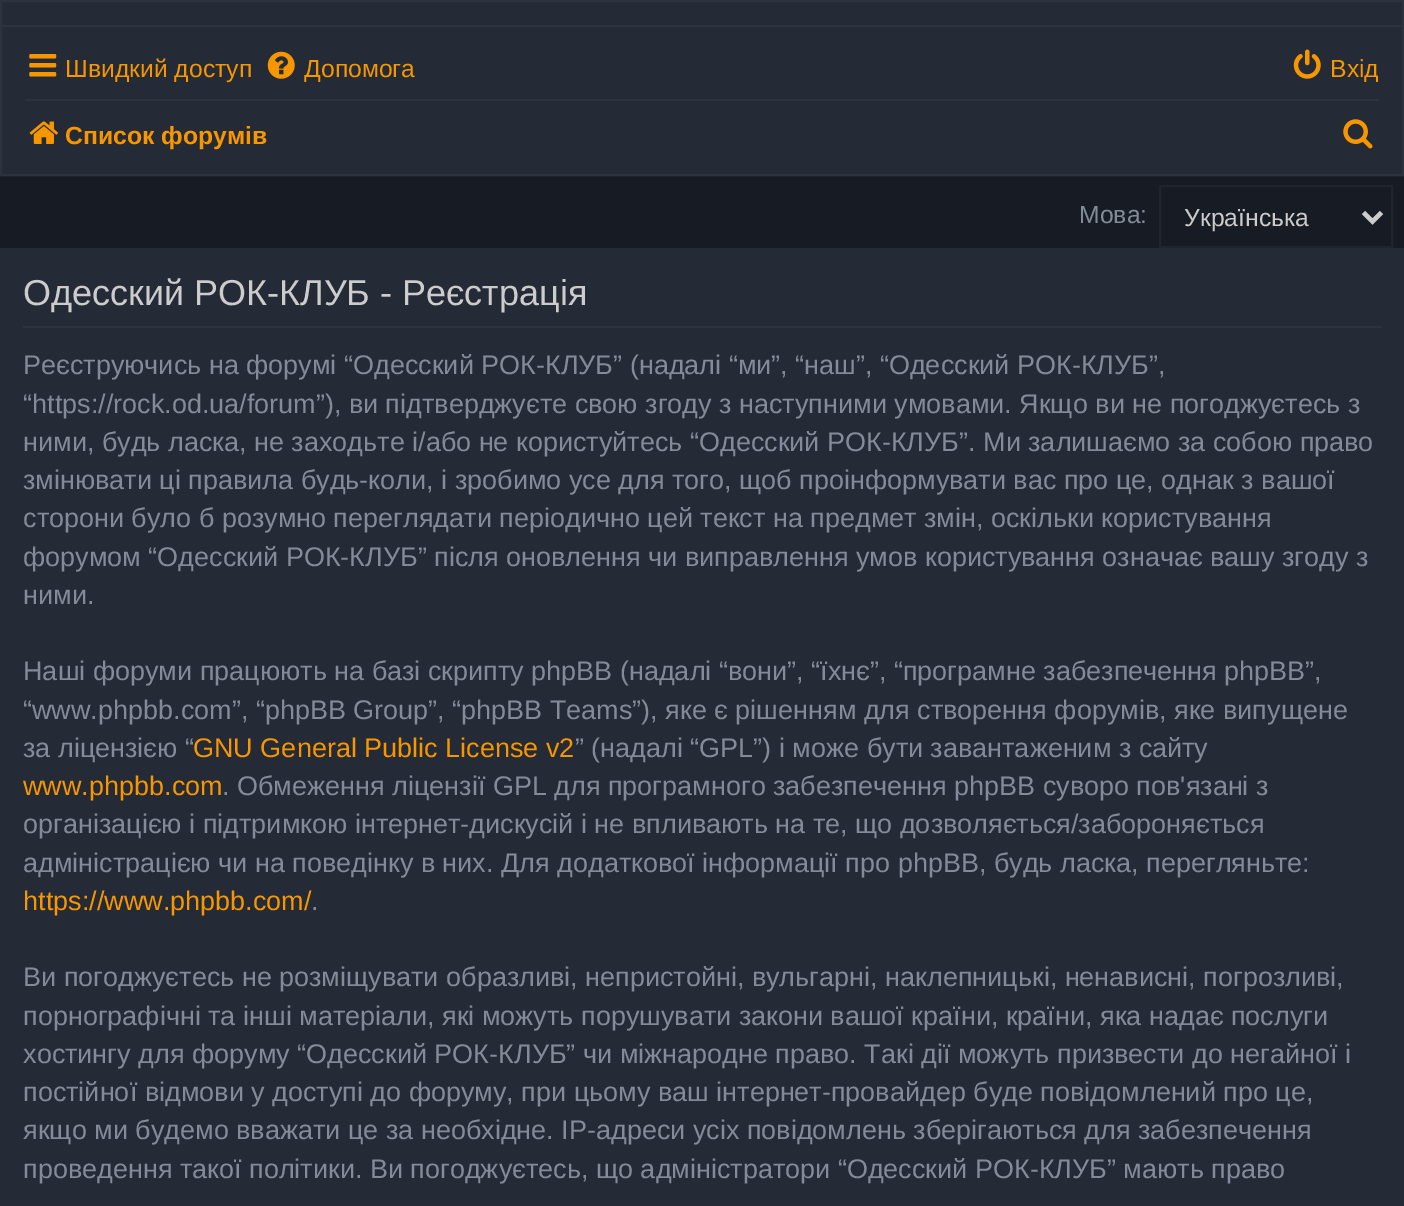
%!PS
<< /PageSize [1404 1206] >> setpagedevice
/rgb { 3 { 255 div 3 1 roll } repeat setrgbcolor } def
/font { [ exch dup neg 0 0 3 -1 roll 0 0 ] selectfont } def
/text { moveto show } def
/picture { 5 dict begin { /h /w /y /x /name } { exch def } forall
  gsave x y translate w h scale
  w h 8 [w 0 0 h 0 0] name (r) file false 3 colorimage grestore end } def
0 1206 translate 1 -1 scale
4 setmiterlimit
23 27 36 rgb
0 0 1404 1206 rectfill
36 42 54 rgb
1 1 moveto 1402 0 rlineto 0 25 rlineto -1402 0 rlineto closepath gsave fill grestore
45 51 62 rgb
2 setlinewidth
stroke
36 42 54 rgb
1 26 moveto 1402 0 rlineto 0 149 rlineto -1402 0 rlineto closepath gsave fill grestore
45 51 62 rgb
stroke
(img_01.rgb) 29 54 28 23 picture
(img_02.rgb) 267 51 28 28 picture
(img_03.rgb) 1293 49 28 30 picture
25 99 1354 2 rectfill
(img_04.rgb) 29 121 29 23 picture
(img_05.rgb) 1343 119 30 30 picture
32 36 45 rgb
1160 186 232 61 rectstroke
204 204 204 rgb
4.5 setlinewidth
1363.5 212.5 moveto 9 9 rlineto 9 -9 rlineto stroke
36 42 54 rgb
0 248 1404 958 rectfill
45 51 62 rgb
23 326 1359 2 rectfill
/LiberationSans-Regular 24.75 font
246 150 0 rgb
(Швидкий доступ) 65 77 text
(Допомога) 304 77 text
(Вхід) 1330 77 text
/LiberationSans-Bold 24.75 font
(Список форумів) 65 144 text
/LiberationSans-Regular 24.75 font
131 139 152 rgb
(Мова:) 1079 223 text
204 204 204 rgb
(Українська) 1184 226 text
/LiberationSans-Regular 36 font
(Одесский РОК-КЛУБ - Реєстрація) 23 305 text
/LiberationSans-Regular 27 font
131 139 152 rgb
(Реєструючись на форумі “Одесский РОК-КЛУБ” \(надалі “ми”, “наш”, “Одесский РОК-КЛУБ”,) 23 374 text
(“https://rock.od.ua/forum”\), ви підтверджуєте свою згоду з наступними умовами. Якщо ви не погоджуєтесь з) 23 413 text
(ними, будь ласка, не заходьте і/або не користуйтесь “Одесский РОК-КЛУБ”. Ми залишаємо за собою право) 23 451 text
(змінювати ці правила будь-коли, і зробимо усе для того, щоб проінформувати вас про це, однак з вашої) 23 489 text
(сторони було б розумно переглядати періодично цей текст на предмет змін, оскільки користування) 23 527 text
(форумом “Одесский РОК-КЛУБ” після оновлення чи виправлення умов користування означає вашу згоду з) 23 566 text
(ними.) 23 604 text
(Наші форуми працюють на базі скрипту phpBB \(надалі “вони”, “їхнє”, “програмне забезпечення phpBB”,) 23 680 text
(“www.phpbb.com”, “phpBB Group”, “phpBB Teams”\), яке є рішенням для створення форумів, яке випущене) 23 719 text
(за ліцензією “) 23 757 text
246 150 0 rgb
(GNU General Public License v2) 193 757 text
131 139 152 rgb
(” \(надалі “GPL”\) і може бути завантаженим з сайту) 575 757 text
gsave
23 259 1359 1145 rectclip
246 150 0 rgb
(www.phpbb.com) 23 795 text
grestore
(. Обмеження ліцензії GPL для програмного забезпечення phpBB суворо пов'язані з) 222 795 text
(організацією і підтримкою інтернет-дискусій і не впливають на те, що дозволяється/забороняється) 23 833 text
(адміністрацією чи на поведінку в них. Для додаткової інформації про phpBB, будь ласка, перегляньте:) 23 872 text
246 150 0 rgb
(https://www.phpbb.com/) 23 910 text
131 139 152 rgb
(.) 311 910 text
(Ви погоджуєтесь не розміщувати образливі, непристойні, вульгарні, наклепницькі, ненависні, погрозливі,) 23 986 text
(порнографічні та інші матеріали, які можуть порушувати закони вашої країни, країни, яка надає послуги) 23 1025 text
(хостингу для форуму “Одесский РОК-КЛУБ” чи міжнародне право. Такі дії можуть призвести до негайної і) 23 1063 text
(постійної відмови у доступі до форуму, при цьому ваш інтернет-провайдер буде повідомлений про це,) 23 1101 text
(якщо ми будемо вважати це за необхідне. IP-адреси усіх повідомлень зберігаються для забезпечення) 23 1139 text
(проведення такої політики. Ви погоджуєтесь, що адміністратори “Одесский РОК-КЛУБ” мають право) 23 1178 text
showpage
